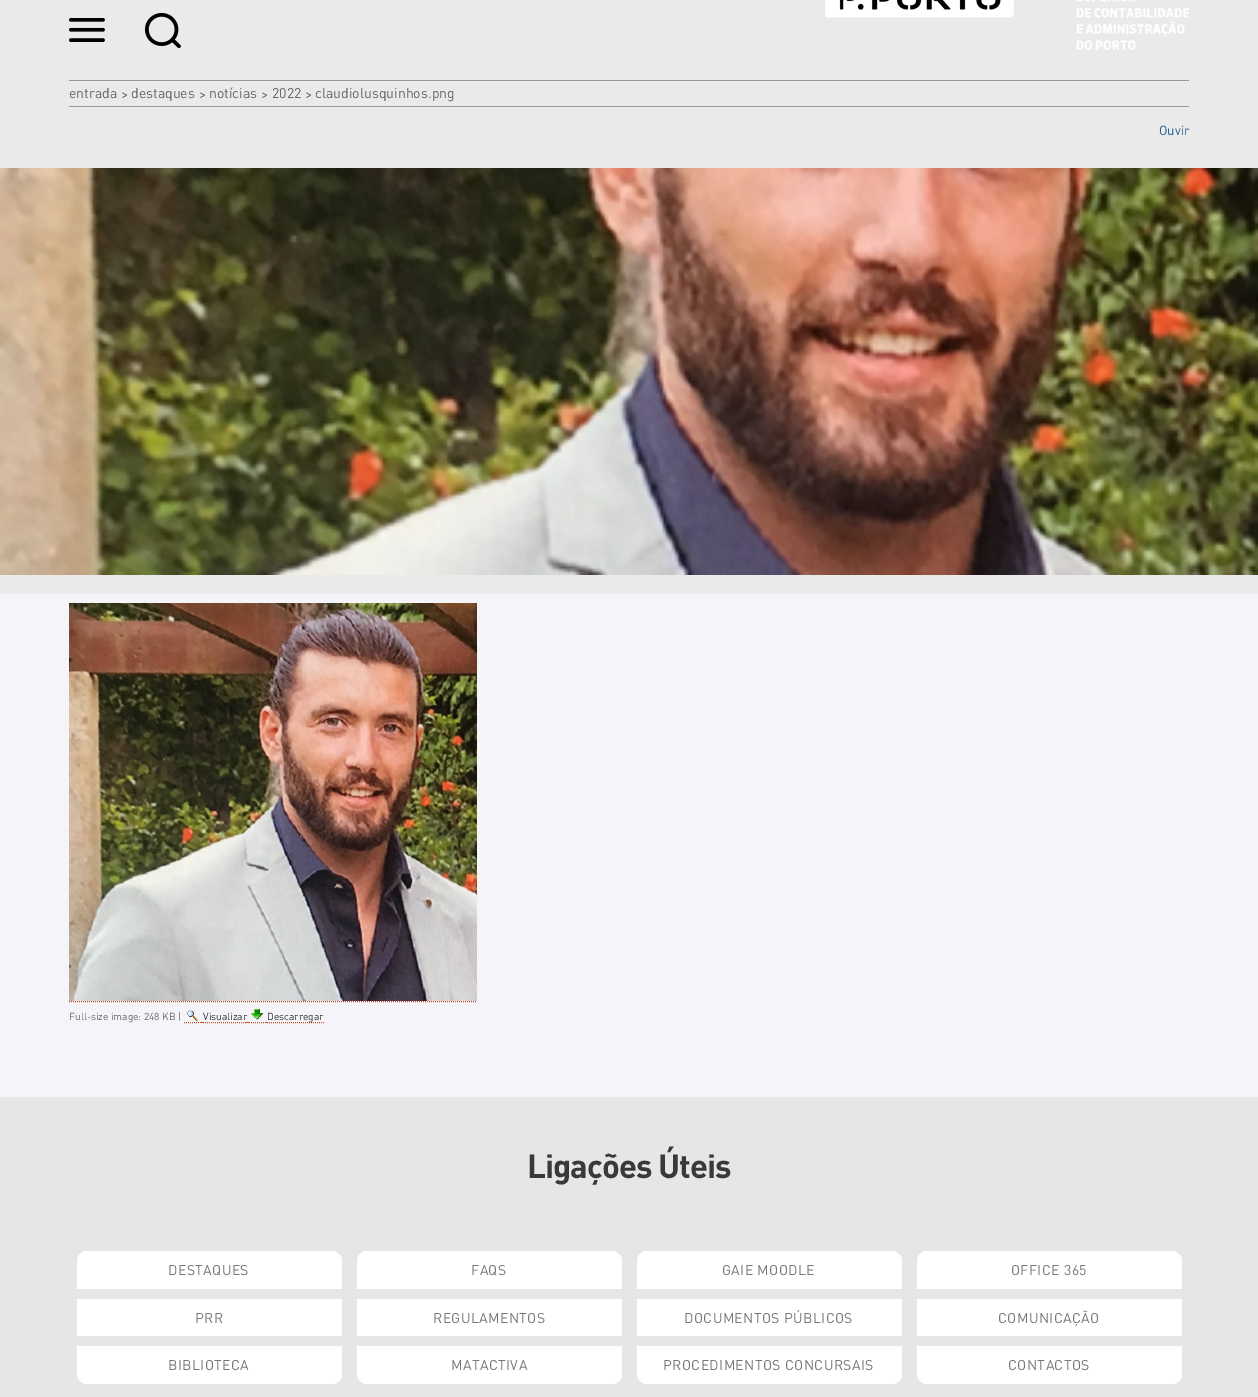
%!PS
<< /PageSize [1258 1397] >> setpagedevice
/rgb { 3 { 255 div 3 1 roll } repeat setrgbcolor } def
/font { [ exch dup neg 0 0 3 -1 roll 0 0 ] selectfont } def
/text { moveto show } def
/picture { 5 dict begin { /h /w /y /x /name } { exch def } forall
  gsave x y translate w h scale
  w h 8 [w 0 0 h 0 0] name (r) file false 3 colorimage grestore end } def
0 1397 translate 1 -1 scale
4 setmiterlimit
244 244 249 rgb
0 0 1258 1397 rectfill
234 234 234 rgb
0 0 1258 594 rectfill
(img_01.rgb) 69 18 36 24 picture
(img_02.rgb) 145 13 36 35 picture
(img_03.rgb) 825 0 364 50 picture
153 153 153 rgb
69 80 1120 1 rectfill
69 106 1120 1 rectfill
(img_04.rgb) 0 168 1258 407 picture
(img_05.rgb) 69 603 408 398 picture
202 77 36 rgb
[1 1] 0 setdash
69 1001.5 moveto 408 0 rlineto stroke
184 1022.5 moveto 16 0 rlineto stroke
(img_06.rgb) 187 1010 11 11 picture
200 1022 3 1 rectfill
203 1022.5 moveto 43 0 rlineto stroke
246 1022 3 1 rectfill
249 1022.5 moveto 16 0 rlineto stroke
(img_07.rgb) 251 1009 12 11 picture
265 1022 2 1 rectfill
267 1022.5 moveto 57 0 rlineto stroke
230 230 230 rgb
0 1097 1258 300 rectfill
255 255 255 rgb
87 1251 moveto 245 0 rlineto 5.5 0 10 4.5 10 10 rcurveto 0 28 rlineto -265 0 rlineto 0 -28 rlineto 0 -5.5 4.5 -10 10 -10 rcurveto closepath fill
367 1251 moveto 245 0 rlineto 5.5 0 10 4.5 10 10 rcurveto 0 28 rlineto -265 0 rlineto 0 -28 rlineto 0 -5.5 4.5 -10 10 -10 rcurveto closepath fill
647 1251 moveto 245 0 rlineto 5.5 0 10 4.5 10 10 rcurveto 0 28 rlineto -265 0 rlineto 0 -28 rlineto 0 -5.5 4.5 -10 10 -10 rcurveto closepath fill
927 1251 moveto 245 0 rlineto 5.5 0 10 4.5 10 10 rcurveto 0 28 rlineto -265 0 rlineto 0 -28 rlineto 0 -5.5 4.5 -10 10 -10 rcurveto closepath fill
77 1299 265 37 rectfill
357 1299 265 37 rectfill
637 1299 265 37 rectfill
917 1299 265 37 rectfill
77 1346 moveto 265 0 rlineto 0 28 rlineto 0 5.5 -4.5 10 -10 10 rcurveto -245 0 rlineto -5.5 0 -10 -4.5 -10 -10 rcurveto closepath fill
357 1346 moveto 265 0 rlineto 0 28 rlineto 0 5.5 -4.5 10 -10 10 rcurveto -245 0 rlineto -5.5 0 -10 -4.5 -10 -10 rcurveto closepath fill
637 1346 moveto 265 0 rlineto 0 28 rlineto 0 5.5 -4.5 10 -10 10 rcurveto -245 0 rlineto -5.5 0 -10 -4.5 -10 -10 rcurveto closepath fill
917 1346 moveto 265 0 rlineto 0 28 rlineto 0 5.5 -4.5 10 -10 10 rcurveto -245 0 rlineto -5.5 0 -10 -4.5 -10 -10 rcurveto closepath fill
/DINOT-Regular 14 font
102 102 102 rgb
(entrada) 69 98 text
(>) 121 99 text
(destaques) 131 98 text
(>) 199 99 text
(notícias) 209 98 text
(>) 261 99 text
(2022) 272 98 text
(>) 305 99 text
(claudiolusquinhos.png) 315 98 text
/DINOT-Regular 13 font
32 92 144 rgb
(Ouvir) 1159 135 text
/DINOT-Regular 10.1 font
102 102 102 rgb
(Full-size image: 248 KB |) 69 1020 text
51 51 51 rgb
(Visualizar) 203 1020 text
(Descarregar) 267 1020 text
/DINOT-Bold 33 font
57 57 57 rgb
527 1178 moveto -1 0 (Ligações Úteis) ashow
/DINOT-Regular 14 font
118 118 118 rgb
168 1275 moveto 0.4 0 (DESTAQUES) ashow
471 1275 moveto 0.4 0 (FAQS) ashow
722 1275 moveto 0.4 0 (GAIE MOODLE) ashow
1011 1275 moveto 0.4 0 (OFFICE 365) ashow
195 1323 moveto 0.4 0 (PRR) ashow
433 1323 moveto 0.4 0 (REGULAMENTOS) ashow
684 1323 moveto 0.4 0 (DOCUMENTOS PÚBLICOS) ashow
998 1323 moveto 0.4 0 (COMUNICAÇÃO) ashow
168 1370 moveto 0.4 0 (BIBLIOTECA) ashow
451 1370 moveto 0.4 0 (MATACTIVA) ashow
663 1370 moveto 0.4 0 (PROCEDIMENTOS CONCURSAIS) ashow
1008 1370 moveto 0.4 0 (CONTACTOS) ashow
showpage
